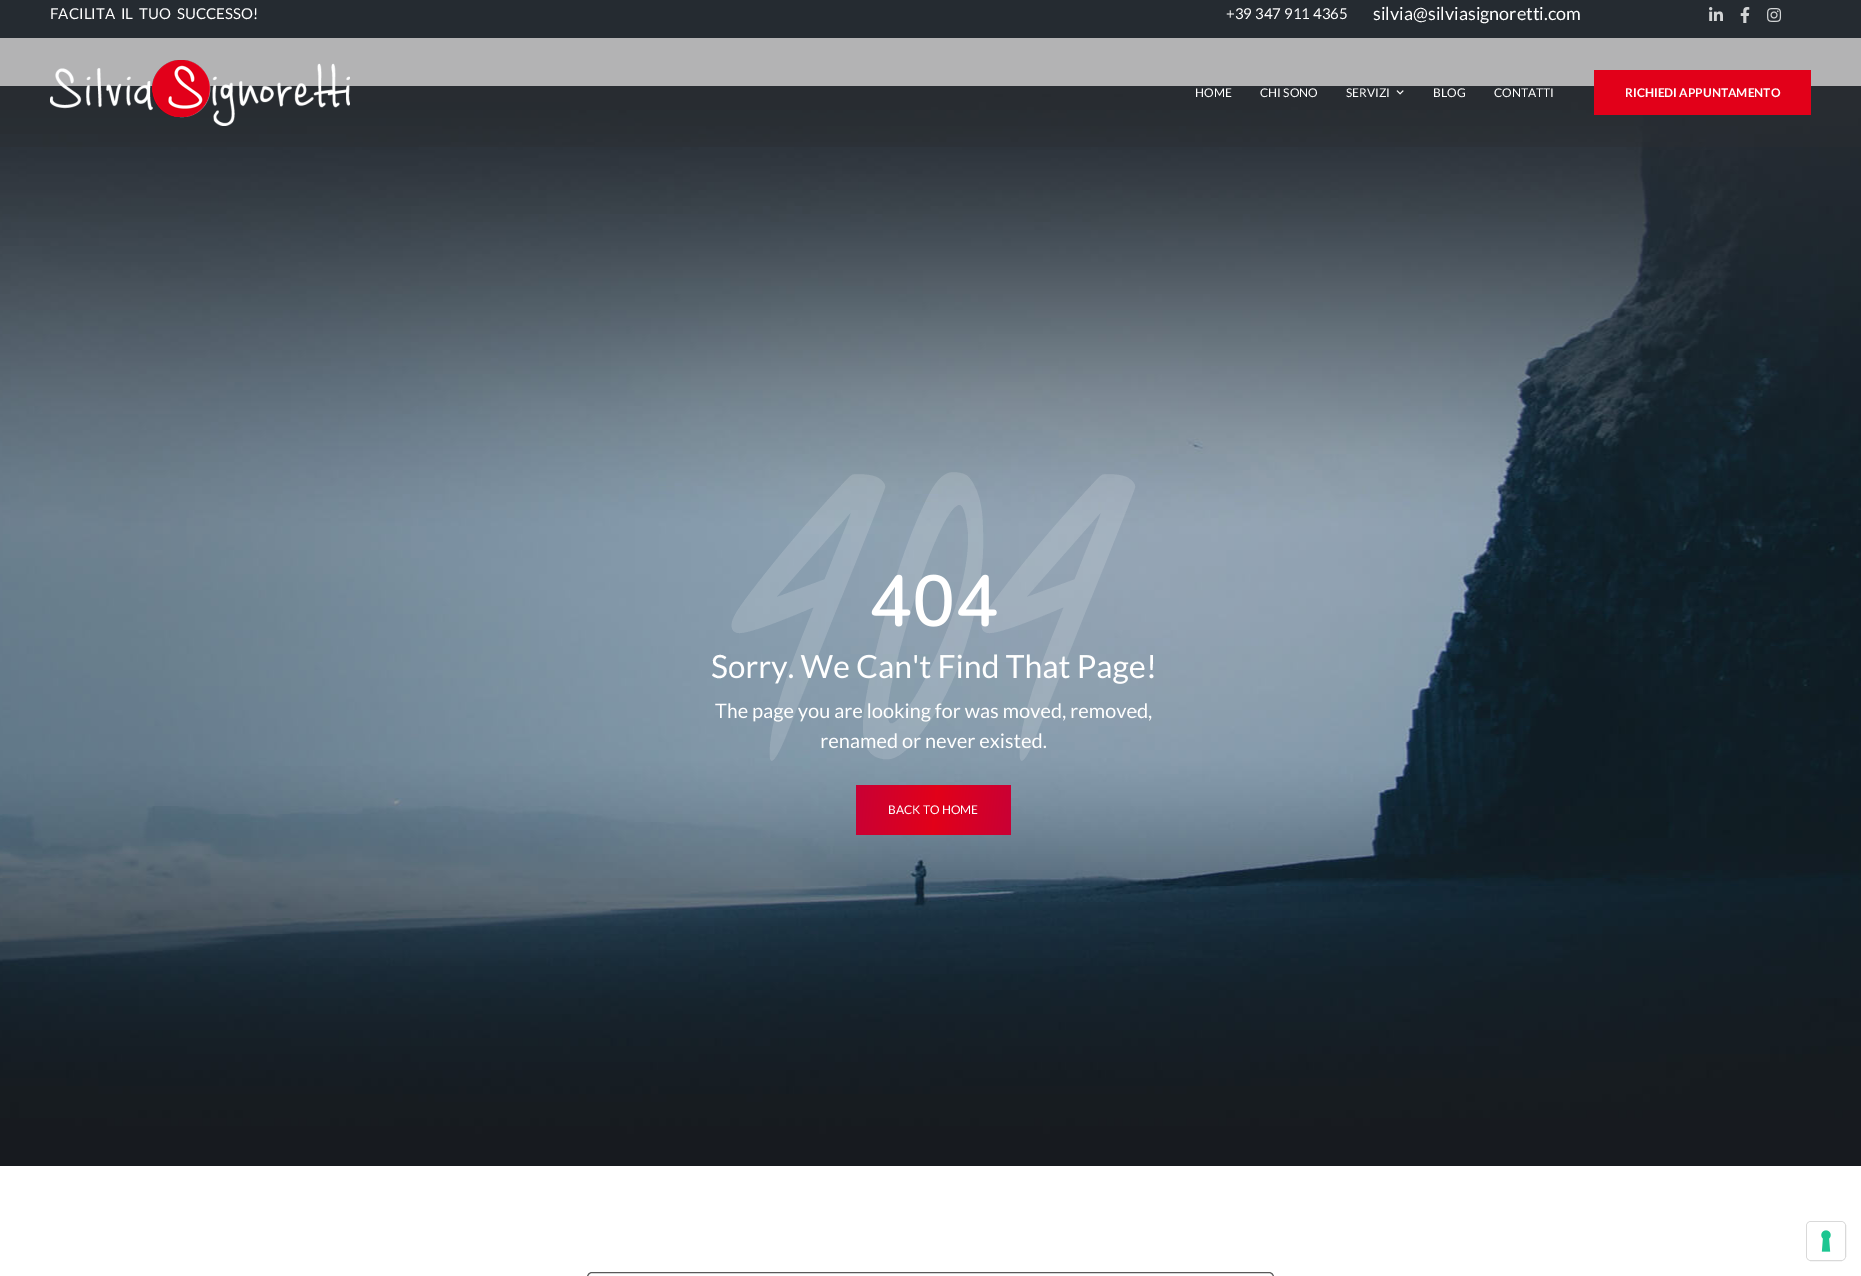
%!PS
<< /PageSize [1861 1276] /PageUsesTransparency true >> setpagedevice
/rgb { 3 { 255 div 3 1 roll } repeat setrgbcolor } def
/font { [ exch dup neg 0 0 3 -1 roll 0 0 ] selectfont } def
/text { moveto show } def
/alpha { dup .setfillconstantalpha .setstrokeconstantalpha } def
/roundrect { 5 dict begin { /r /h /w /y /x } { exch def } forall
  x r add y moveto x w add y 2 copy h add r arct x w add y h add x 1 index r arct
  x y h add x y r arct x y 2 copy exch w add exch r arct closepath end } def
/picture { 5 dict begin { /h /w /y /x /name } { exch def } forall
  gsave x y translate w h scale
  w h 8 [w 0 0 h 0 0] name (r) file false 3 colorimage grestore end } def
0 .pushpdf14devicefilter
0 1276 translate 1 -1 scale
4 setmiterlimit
255 255 255 rgb
0 0 1861 1276 rectfill
37 43 49 rgb
0 0 1861 38 rectfill
(img_01.rgb) 1709 7 14 14 picture
(img_02.rgb) 1740 7 10 16 picture
(img_03.rgb) 1767 8 15 14 picture
(img_06.rgb) 0 86 1861 1080 picture
0.36 alpha
43 45 48 rgb
0 38 1861 109 rectfill
1 alpha
(img_04.rgb) 50 60 300 66 picture
(img_05.rgb) 1396 90 8 5 picture
226 0 25 rgb
1594 70 217 45 rectfill
gsave 856 785 moveto 155 0 rlineto 0 50 rlineto -155 0 rlineto closepath clip newpath
<< /ShadingType 2 /ColorSpace /DeviceRGB /Coords [854 802 1013 818] /Extend [true true] /Function << /FunctionType 3 /Domain [0 1] /Functions [<< /FunctionType 2 /Domain [0 1] /C0 [0.788 0 0.208] /C1 [0.886 0 0.098] /N 1 >> << /FunctionType 2 /Domain [0 1] /C0 [0.886 0 0.098] /C1 [0.788 0 0.208] /N 1 >>] /Bounds [0.51] /Encode [0 1 0 1] >> >> shfill grestore
217 217 217 rgb
1806.5 1221.5 39 39 4.5 roundrect stroke
255 255 255 rgb
1807 1222 38 38 4 roundrect fill
(img_08.rgb) 1821 1230 10 22 picture
89 89 89 rgb
587.5 1272.5 686 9 4.5 roundrect stroke
/Lato-Regular 15 font
255 255 255 rgb
50 19 moveto 3 0 32 (FACILITA IL TUO SUCCESSO!) widthshow
(+39 347 911 4365) 1226 19 text
/Lato-Regular 18 font
(silvia@silviasignoretti.com) 1373 20 text
/Lato-Regular 12 font
(HOME) 1195 97 text
(CHI SONO) 1260 97 text
(SERVIZI) 1346 97 text
(BLOG) 1433 97 text
(CONTATTI) 1494 97 text
/Lato-Bold 12 font
(RICHIEDI APPUNTAMENTO) 1625 97 text
/Nunito-ExtraLight 72 font
(404) 869 626 text
/Lato-Regular 32 font
(Sorry. We Can't Find That Page!) 711 678 text
/Lato-Regular 20 font
(The page you are looking for was moved, removed,) 715 718 text
(renamed or never existed.) 820 748 text
(img_07.rgb) 731 472 405 289 picture
/Lato-Regular 12 font
(BACK TO HOME) 888 814 text
.poppdf14devicefilter showpage
